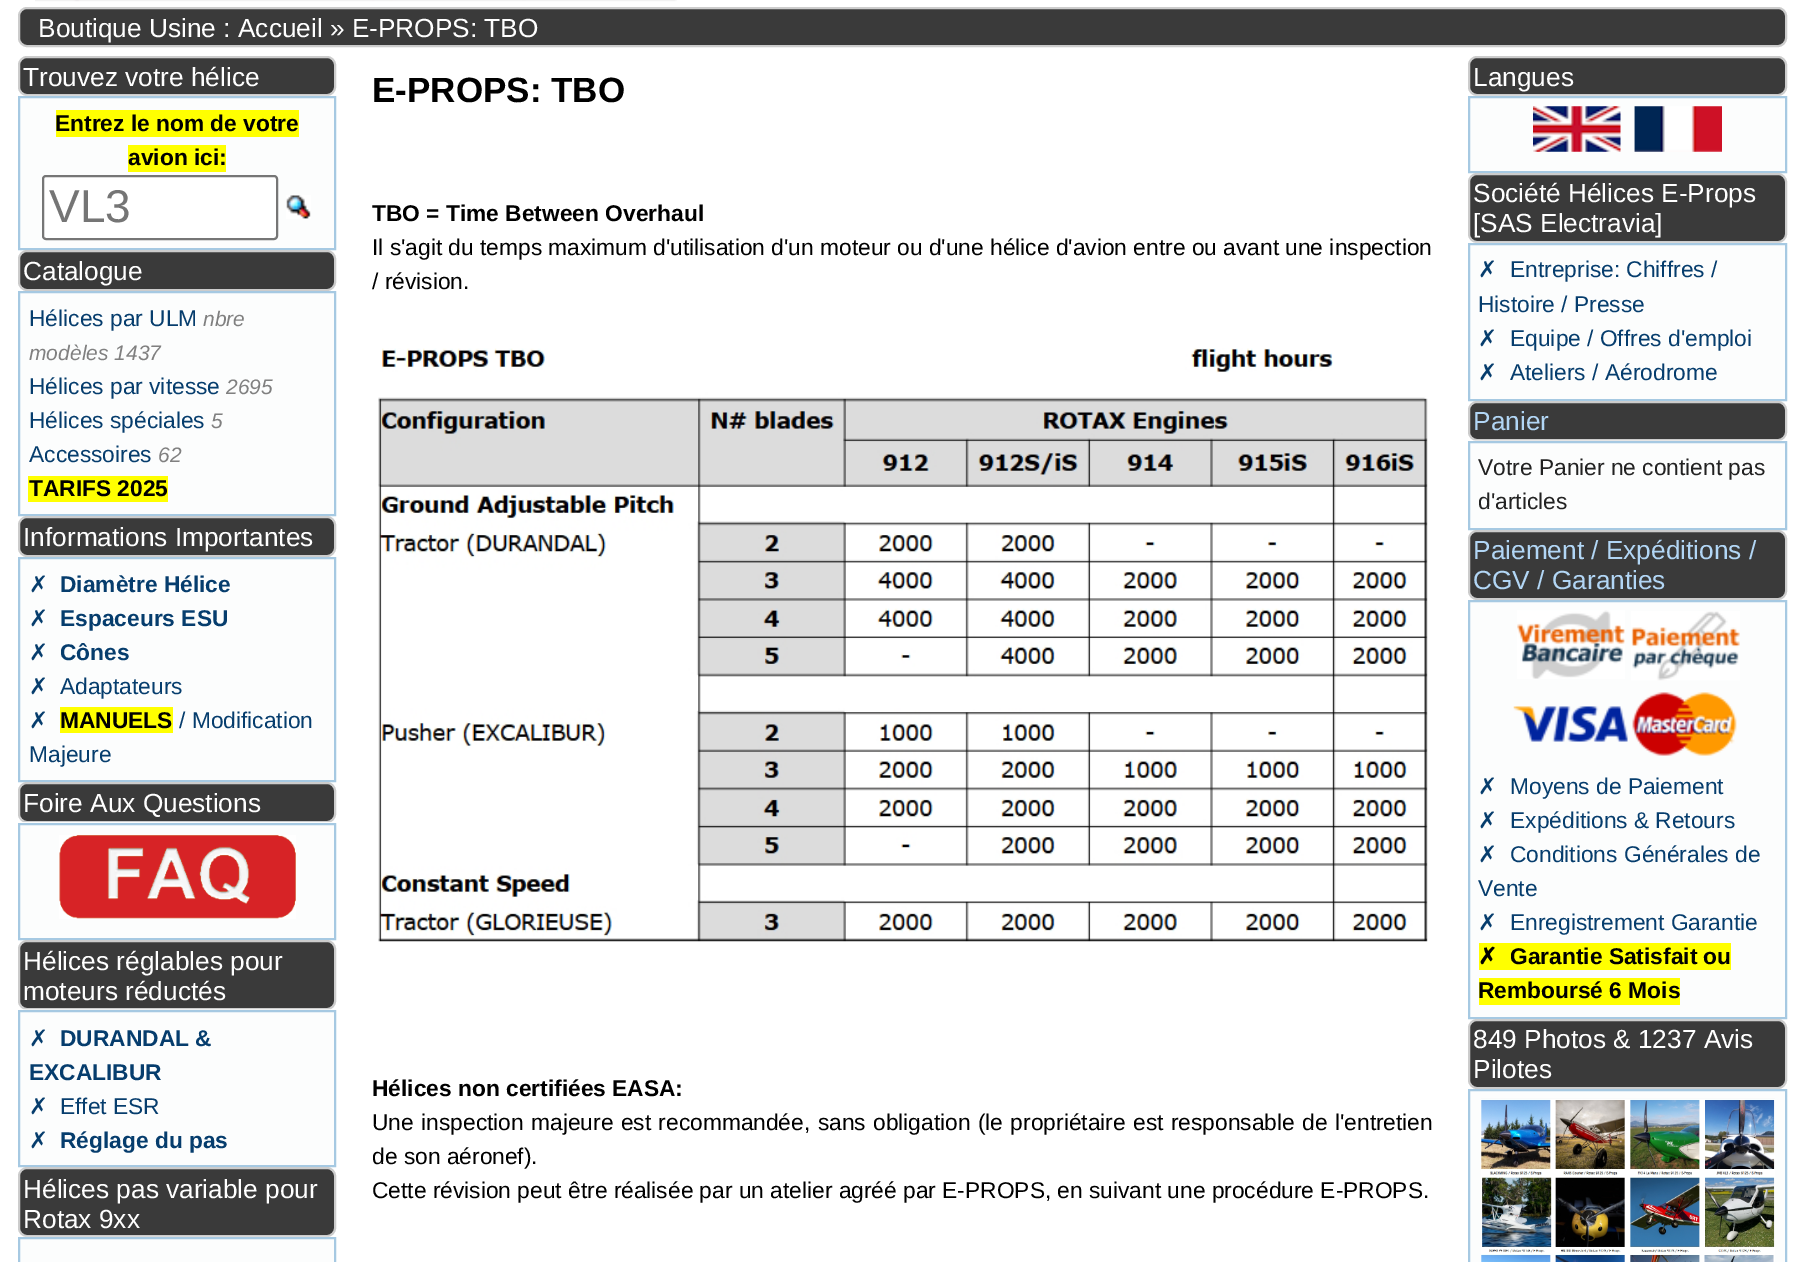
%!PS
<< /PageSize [1804 1262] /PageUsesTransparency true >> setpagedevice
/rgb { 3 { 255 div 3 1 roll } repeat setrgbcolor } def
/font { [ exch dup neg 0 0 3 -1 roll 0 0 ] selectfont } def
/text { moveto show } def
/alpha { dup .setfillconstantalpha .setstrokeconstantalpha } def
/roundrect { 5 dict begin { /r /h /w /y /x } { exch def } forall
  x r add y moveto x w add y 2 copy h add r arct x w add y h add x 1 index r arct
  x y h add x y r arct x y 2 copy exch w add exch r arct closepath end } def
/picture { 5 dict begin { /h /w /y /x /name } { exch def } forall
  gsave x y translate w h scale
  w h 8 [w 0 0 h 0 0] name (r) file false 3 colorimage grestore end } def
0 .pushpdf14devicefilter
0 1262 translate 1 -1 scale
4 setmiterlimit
255 255 255 rgb
0 0 1804 1262 rectfill
(img_01.rgb) 35 0 642 2 picture
58 58 58 rgb
19 8 1767 38 8 roundrect gsave fill grestore
204 204 204 rgb
2 setlinewidth
stroke
58 58 58 rgb
19 57 316 38 8 roundrect gsave fill grestore
204 204 204 rgb
stroke
252 253 253 rgb
19 97 moveto 316 0 rlineto 0 152 rlineto -316 0 rlineto closepath gsave fill grestore
166 201 226 rgb
stroke
0.25 alpha
251 255 255 rgb
23 95 308 1 rectfill
1 alpha
255 255 0 rgb
56 110 243 27 rectfill
128 145 98 27 rectfill
255 255 255 rgb
43 176 234 63 3 roundrect gsave fill grestore
118 118 118 rgb
stroke
(img_02.rgb) 286 195 25 24 picture
58 58 58 rgb
19 251 316 39 8 roundrect gsave fill grestore
204 204 204 rgb
stroke
252 253 253 rgb
19 292 moveto 316 0 rlineto 0 223 rlineto -316 0 rlineto closepath gsave fill grestore
166 201 226 rgb
stroke
255 255 0 rgb
28 476 140 26 rectfill
58 58 58 rgb
19 517 316 39 8 roundrect gsave fill grestore
204 204 204 rgb
stroke
252 253 253 rgb
19 558 moveto 316 0 rlineto 0 223 rlineto -316 0 rlineto closepath gsave fill grestore
166 201 226 rgb
stroke
255 255 0 rgb
60 707 113 26 rectfill
58 58 58 rgb
19 783 316 39 8 roundrect gsave fill grestore
204 204 204 rgb
stroke
252 253 253 rgb
19 824 moveto 316 0 rlineto 0 115 rlineto -316 0 rlineto closepath gsave fill grestore
166 201 226 rgb
stroke
252 253 253 rgb
23 822 308 1 rectfill
(img_03.rgb) 59 835 237 84 picture
58 58 58 rgb
19 941 316 68 8 roundrect gsave fill grestore
204 204 204 rgb
stroke
252 253 253 rgb
19 1011 moveto 316 0 rlineto 0 155 rlineto -316 0 rlineto closepath gsave fill grestore
166 201 226 rgb
stroke
0.75 alpha
251 252 252 rgb
23 1009 308 1 rectfill
1 alpha
58 58 58 rgb
19 1168 316 68 8 roundrect gsave fill grestore
204 204 204 rgb
stroke
252 253 253 rgb
19 1238 moveto 316 0 rlineto 0 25 rlineto -316 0 rlineto closepath gsave fill grestore
166 201 226 rgb
stroke
0.25 alpha
255 255 255 rgb
23 1236 308 1 rectfill
1 alpha
(img_04.rgb) 378 348 1050 594 picture
58 58 58 rgb
1469 57 317 38 8 roundrect gsave fill grestore
204 204 204 rgb
stroke
252 253 253 rgb
1469 97 moveto 317 0 rlineto 0 75 rlineto -317 0 rlineto closepath gsave fill grestore
166 201 226 rgb
stroke
0.25 alpha
255 255 255 rgb
1473 95 309 1 rectfill
1 alpha
(img_05.rgb) 1533 106 88 46 picture
(img_06.rgb) 1634 106 88 46 picture
58 58 58 rgb
1469 174 317 68 8 roundrect gsave fill grestore
204 204 204 rgb
stroke
252 253 253 rgb
1469 244 moveto 317 0 rlineto 0 156 rlineto -317 0 rlineto closepath gsave fill grestore
166 201 226 rgb
stroke
0.25 alpha
251 251 251 rgb
1473 242 309 1 rectfill
1 alpha
58 58 58 rgb
1469 402 317 38 8 roundrect gsave fill grestore
204 204 204 rgb
stroke
252 253 253 rgb
1469 442 moveto 317 0 rlineto 0 87 rlineto -317 0 rlineto closepath gsave fill grestore
166 201 226 rgb
stroke
0.5 alpha
253 253 253 rgb
1473 440 309 1 rectfill
1 alpha
58 58 58 rgb
1469 531 317 68 8 roundrect gsave fill grestore
204 204 204 rgb
stroke
252 253 253 rgb
1469 601 moveto 317 0 rlineto 0 417 rlineto -317 0 rlineto closepath gsave fill grestore
166 201 226 rgb
stroke
(img_07.rgb) 1517 610 108 69 picture
(img_08.rgb) 1631 611 109 70 picture
(img_09.rgb) 1513 706 115 36 picture
(img_10.rgb) 1632 692 105 64 picture
255 255 0 rgb
1479 943 252 27 rectfill
1479 978 201 27 rectfill
58 58 58 rgb
1469 1020 317 68 8 roundrect gsave fill grestore
204 204 204 rgb
stroke
252 253 253 rgb
1469 1090 moveto 317 0 rlineto 0 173 rlineto -317 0 rlineto closepath gsave fill grestore
166 201 226 rgb
stroke
(img_11.rgb) 1481 1098 294 164 picture
/LiberationSans-Regular 26.25 font
255 255 255 rgb
(Boutique Usine : Accueil » E-PROPS: TBO) 38 37 text
(Trouvez votre hélice) 23 86 text
/LiberationSans-Bold 22.75 font
0 0 0 rgb
(Entrez le nom de votre) 55 131 text
(avion ici:) 128 165 text
/LiberationSans-Regular 46 font
117 117 117 rgb
(VL3) 49 222 text
/LiberationSans-Regular 26.25 font
255 255 255 rgb
(Catalogue) 23 280 text
/LiberationSans-Regular 22.75 font
6 61 109 rgb
(Hélices par ULM) 29 326 text
/LiberationSans-Italic 21 font
128 128 128 rgb
(nbre) 203 326 text
(modèles 1437) 29 360 text
/LiberationSans-Regular 22.75 font
6 61 109 rgb
(Hélices par vitesse) 29 394 text
/LiberationSans-Italic 21 font
128 128 128 rgb
(2695) 226 394 text
/LiberationSans-Regular 22.75 font
6 61 109 rgb
(Hélices spéciales) 29 428 text
/LiberationSans-Italic 21 font
128 128 128 rgb
(5) 211 428 text
/LiberationSans-Regular 22.75 font
6 61 109 rgb
(Accessoires) 29 462 text
/LiberationSans-Italic 21 font
128 128 128 rgb
(62) 158 462 text
/LiberationSans-Bold 22.75 font
0 0 0 rgb
(TARIFS 2025) 29 496 text
/LiberationSans-Regular 26.25 font
255 255 255 rgb
(Informations Importantes) 23 546 text
/DejaVuSans-Regular 22.75 font
6 61 109 rgb
(✗) 29 592 text
/LiberationSans-Bold 22.75 font
(Diamètre Hélice) 60 592 text
/DejaVuSans-Regular 22.75 font
(✗) 29 626 text
/LiberationSans-Bold 22.75 font
(Espaceurs ESU) 60 626 text
/DejaVuSans-Regular 22.75 font
(✗) 29 660 text
/LiberationSans-Bold 22.75 font
(Cônes) 60 660 text
/DejaVuSans-Regular 22.75 font
(✗) 29 694 text
/LiberationSans-Regular 22.75 font
(Adaptateurs) 60 694 text
/DejaVuSans-Regular 22.75 font
(✗) 29 728 text
/LiberationSans-Bold 22.75 font
0 0 0 rgb
(MANUELS) 60 728 text
/LiberationSans-Regular 22.75 font
6 61 109 rgb
(/ Modification) 179 728 text
(Majeure) 29 762 text
/LiberationSans-Regular 26.25 font
255 255 255 rgb
(Foire Aux Questions) 23 812 text
(Hélices réglables pour) 23 970 text
(moteurs réductés) 23 1000 text
/DejaVuSans-Regular 22.75 font
6 61 109 rgb
(✗) 29 1046 text
/LiberationSans-Bold 22.75 font
(DURANDAL &) 60 1046 text
(EXCALIBUR) 29 1080 text
/DejaVuSans-Regular 22.75 font
(✗) 29 1114 text
/LiberationSans-Regular 22.75 font
(Effet ESR) 60 1114 text
/DejaVuSans-Regular 22.75 font
(✗) 29 1148 text
/LiberationSans-Bold 22.75 font
(Réglage du pas) 60 1148 text
/LiberationSans-Regular 26.25 font
255 255 255 rgb
(Hélices pas variable pour) 23 1198 text
(Rotax 9xx) 23 1228 text
/LiberationSans-Bold 35 font
0 0 0 rgb
(E-PROPS: TBO) 372 102 text
/LiberationSans-Bold 22.75 font
(TBO = Time Between Overhaul) 372 221 text
/LiberationSans-Regular 22.75 font
(Il s'agit du temps maximum d'utilisation d'un moteur ou d'une hélice d'avion entre ou avant une inspection) 372 255 text
(/ révision.) 372 289 text
/LiberationSans-Bold 22.75 font
(Hélices non certifiées EASA:) 372 1096 text
/LiberationSans-Regular 22.75 font
372 1130 moveto 1.1 0 32 (Une inspection majeure est recommandée, sans obligation \(le propriétaire est responsable de l'entretien) widthshow
(de son aéronef\).) 372 1164 text
(Cette révision peut être réalisée par un atelier agréé par E-PROPS, en suivant une procédure E-PROPS.) 372 1198 text
/LiberationSans-Regular 26.25 font
255 255 255 rgb
(Langues) 1473 86 text
(Société Hélices E-Props) 1473 202 text
([SAS Electravia]) 1473 232 text
/DejaVuSans-Regular 22.75 font
6 61 109 rgb
(✗) 1478 277 text
/LiberationSans-Regular 22.75 font
(Entreprise: Chiffres /) 1510 277 text
(Histoire / Presse) 1478 312 text
/DejaVuSans-Regular 22.75 font
(✗) 1478 346 text
/LiberationSans-Regular 22.75 font
(Equipe / Offres d'emploi) 1510 346 text
/DejaVuSans-Regular 22.75 font
(✗) 1478 380 text
/LiberationSans-Regular 22.75 font
(Ateliers / Aérodrome) 1510 380 text
/LiberationSans-Regular 26.25 font
178 214 245 rgb
(Panier) 1473 430 text
/LiberationSans-Regular 22.75 font
34 34 34 rgb
(Votre Panier ne contient pas) 1478 475 text
(d'articles) 1478 509 text
/LiberationSans-Regular 26.25 font
178 214 245 rgb
(Paiement / Expéditions /) 1473 559 text
(CGV / Garanties) 1473 589 text
/DejaVuSans-Regular 22.75 font
6 61 109 rgb
(✗) 1478 794 text
/LiberationSans-Regular 22.75 font
(Moyens de Paiement) 1510 794 text
/DejaVuSans-Regular 22.75 font
(✗) 1478 828 text
/LiberationSans-Regular 22.75 font
(Expéditions & Retours) 1510 828 text
/DejaVuSans-Regular 22.75 font
(✗) 1478 862 text
/LiberationSans-Regular 22.75 font
(Conditions Générales de) 1510 862 text
(Vente) 1478 896 text
/DejaVuSans-Regular 22.75 font
(✗) 1478 930 text
/LiberationSans-Regular 22.75 font
(Enregistrement Garantie) 1510 930 text
/DejaVuSans-Bold 22.75 font
0 0 0 rgb
(✗) 1478 964 text
/LiberationSans-Bold 22.75 font
(Garantie Satisfait ou) 1510 964 text
(Remboursé 6 Mois) 1478 998 text
/LiberationSans-Regular 26.25 font
255 255 255 rgb
(849 Photos & 1237 Avis) 1473 1048 text
(Pilotes) 1473 1078 text
.poppdf14devicefilter showpage
